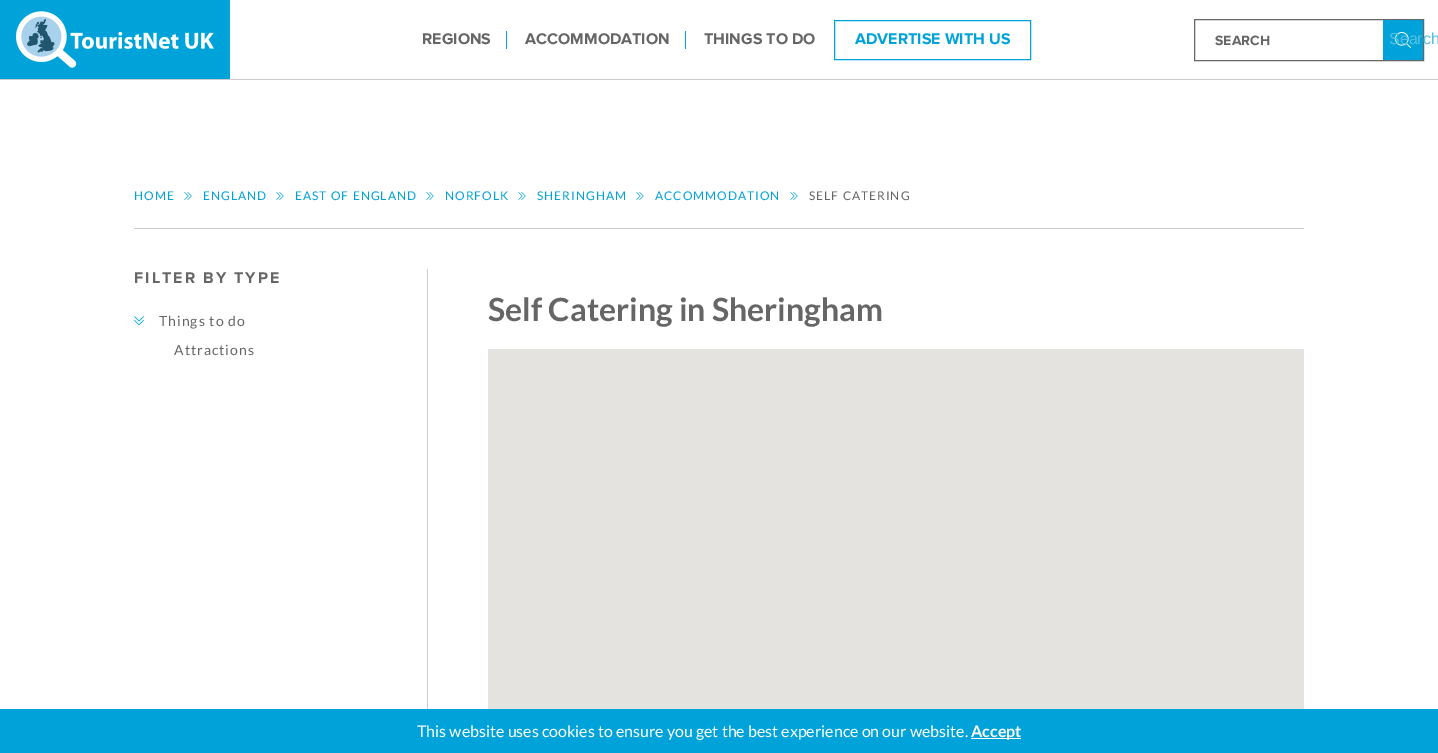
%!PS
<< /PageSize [1438 753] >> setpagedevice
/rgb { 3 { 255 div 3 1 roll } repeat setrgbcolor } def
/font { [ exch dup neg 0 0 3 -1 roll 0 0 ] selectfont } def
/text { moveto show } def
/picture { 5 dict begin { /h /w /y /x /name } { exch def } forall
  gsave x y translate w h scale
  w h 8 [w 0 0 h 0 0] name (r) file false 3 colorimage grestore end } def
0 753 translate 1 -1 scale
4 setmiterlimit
255 255 255 rgb
0 0 1438 753 rectfill
204 204 204 rgb
0 79 1438 1 rectfill
0 163 217 rgb
0 0 230 79 rectfill
(img_01.rgb) 16 11 198 57 picture
506 31 1 18 rectfill
685 31 1 18 rectfill
834.5 20.5 196 39 rectstroke
102 102 102 rgb
1194.5 19.5 229 41 rectstroke
0 163 217 rgb
1383 20 40 40 rectfill
(img_02.rgb) 1395 32 16 16 picture
204 204 204 rgb
134 228 1170 1 rectfill
(img_03.rgb) 184 192 8 8 picture
(img_03.rgb) 276 192 8 8 picture
(img_03.rgb) 426 192 8 8 picture
(img_03.rgb) 518 192 8 8 picture
(img_03.rgb) 636 192 8 8 picture
(img_03.rgb) 790 192 8 8 picture
(img_04.rgb) 134 316 10 9 picture
427 269 1 440 rectfill
229 227 223 rgb
488 349 816 360 rectfill
0 163 217 rgb
0 709 1438 44 rectfill
255 255 255 rgb
971 738 50 1 rectfill
/ProximaNova-Bold 16 font
102 102 102 rgb
(REGIONS) 422 44 text
(ACCOMMODATION) 525 44 text
(THINGS TO DO) 704 44 text
0 163 217 rgb
(ADVERTISE WITH US) 855 44 text
/ProximaNova-Bold 14 font
102 102 102 rgb
(SEARCH) 1215 45 text
/LiberationSans-Regular 16 font
86 192 227 rgb
(Search) 1389 44 text
/Lato-Regular 12 font
0 163 217 rgb
134 200 moveto 1 0 (HOME) ashow
203 200 moveto 1 0 (ENGLAND) ashow
295 200 moveto 1 0 (EAST OF ENGLAND) ashow
445 200 moveto 1 0 (NORFOLK) ashow
537 200 moveto 1 0 (SHERINGHAM) ashow
655 200 moveto 1 0 (ACCOMMODATION) ashow
102 102 102 rgb
809 200 moveto 1 0 (SELF CATERING) ashow
/ProximaNova-Bold 16 font
134 283 moveto 2 0 (FILTER BY TYPE) ashow
/Lato-Regular 14 font
159 326 moveto 1 0 (Things to do) ashow
174 355 moveto 1 0 (Attractions) ashow
/Lato-Bold 32 font
(Self Catering in Sheringham) 488 321 text
/Lato-Regular 16 font
255 255 255 rgb
(This website uses cookies to ensure you get the best experience on our website.) 417 737 text
/Lato-Bold 16 font
(Accept) 971 737 text
showpage
